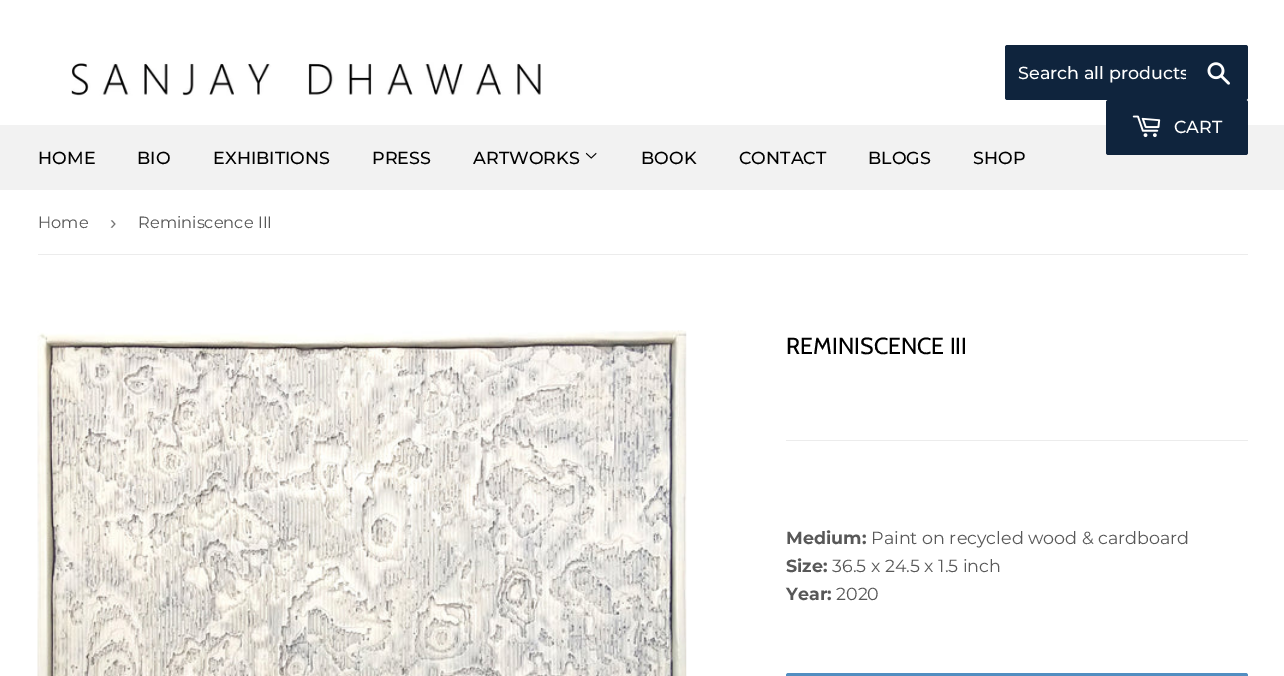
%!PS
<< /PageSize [1284 676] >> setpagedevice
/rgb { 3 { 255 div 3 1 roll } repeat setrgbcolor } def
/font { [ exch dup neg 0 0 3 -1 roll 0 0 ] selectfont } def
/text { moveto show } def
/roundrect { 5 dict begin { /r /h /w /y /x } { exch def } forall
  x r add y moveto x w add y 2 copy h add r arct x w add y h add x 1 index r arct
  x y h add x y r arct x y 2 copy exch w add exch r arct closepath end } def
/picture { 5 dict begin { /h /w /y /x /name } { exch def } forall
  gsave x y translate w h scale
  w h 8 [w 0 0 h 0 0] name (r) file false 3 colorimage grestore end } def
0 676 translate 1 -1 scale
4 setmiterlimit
255 255 255 rgb
0 0 1284 676 rectfill
(img_01.rgb) 71 62 470 34 picture
15 36 61 rgb
1005 45 243 55 2.5 roundrect fill
(img_02.rgb) 1207 62 23 23 picture
242 242 242 rgb
0 125 1284 65 rectfill
15 36 61 rgb
1106 100 142 55 2.5 roundrect fill
(img_03.rgb) 1132 115 29 23 picture
(img_04.rgb) 585 152 12 7 picture
236 236 236 rgb
38 254 1210 1 rectfill
(img_05.rgb) 37 330 650 346 picture
786 440 462 1 rectfill
82 142 193 rgb
786 673 462 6 2.5 roundrect fill
gsave
1018 61 168 23 rectclip
/Montserrat-Medium 17.5 font
255 255 255 rgb
(Search all products) 1018 79 text
grestore
/Montserrat-Medium 17.5 font
255 255 255 rgb
(CART) 1174 133 text
0 0 0 rgb
(HOME) 38 164 text
(BIO) 137 164 text
(EXHIBITIONS) 213 164 text
(PRESS) 372 164 text
(ARTWORKS) 473 164 text
(BOOK) 641 164 text
(CONTACT) 739 164 text
(BLOGS) 868 164 text
(SHOP) 973 164 text
/Montserrat-Regular 16.25 font
88 88 88 rgb
(Home) 38 228 text
/LiberationSans-Regular 19 font
118 118 118 rgb
(›) 110 229 text
/Montserrat-Regular 16.25 font
88 88 88 rgb
(Reminiscence III) 138 228 text
/Cabin-Regular 23.25 font
0 0 0 rgb
(REMINISCENCE III) 786 354 text
/Montserrat-Bold 17.5 font
88 88 88 rgb
(Medium:) 786 544 text
/Montserrat-Regular 17.5 font
(Paint on recycled wood & cardboard) 871 544 text
/Montserrat-Bold 17.5 font
(Size:) 786 572 text
/Montserrat-Regular 17.5 font
(36.5 x 24.5 x 1.5 inch) 832 572 text
/Montserrat-Bold 17.5 font
(Year:) 786 600 text
/Montserrat-Regular 17.5 font
(2020) 836 600 text
showpage
